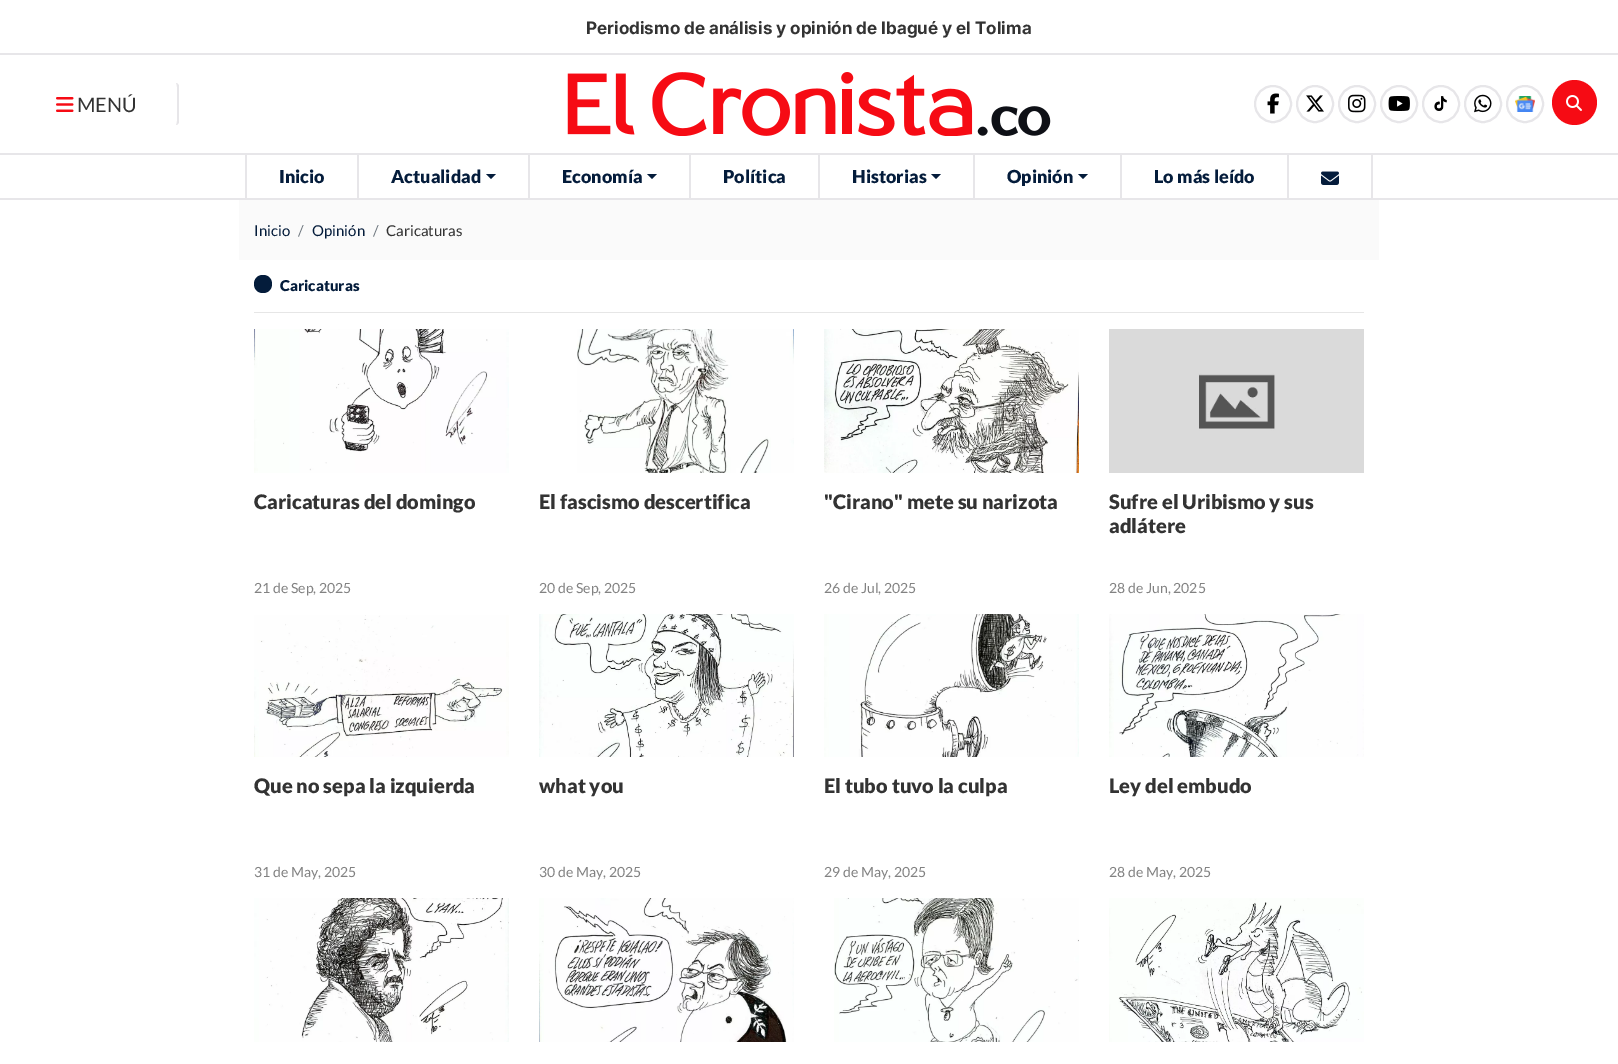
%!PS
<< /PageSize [1618 1064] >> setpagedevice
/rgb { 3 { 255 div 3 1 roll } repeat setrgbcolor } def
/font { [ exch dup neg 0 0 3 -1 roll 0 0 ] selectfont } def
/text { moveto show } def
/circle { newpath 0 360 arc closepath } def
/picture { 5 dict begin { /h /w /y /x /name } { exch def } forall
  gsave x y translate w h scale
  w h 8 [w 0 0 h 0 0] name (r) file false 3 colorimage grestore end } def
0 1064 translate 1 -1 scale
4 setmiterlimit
255 255 255 rgb
0 0 1618 1064 rectfill
231 230 233 rgb
0 53 1618 2 rectfill
179 122 moveto 0 -36 rlineto 0 -1 -1 -2 -2 -3 rcurveto -1 0 rlineto 2 2 1 18 1 21 rcurveto 0 3 1 19 -1 21 rcurveto 1 0 rlineto 1 -1 2 -2 2 -3 rcurveto closepath fill
(img_01.rgb) 56 97 18 15 picture
(img_02.rgb) 567 72 484 64 picture
2 setlinewidth
1273 104 18 circle stroke
(img_03.rgb) 1267 93 12 21 picture
1315 104 18 circle stroke
(img_04.rgb) 1306 95 18 17 picture
1357 104 18 circle stroke
(img_05.rgb) 1348 94 18 19 picture
1399 104 18 circle stroke
(img_06.rgb) 1388 96 22 15 picture
1441 104 18 circle stroke
(img_07.rgb) 1434 96 13 15 picture
1483 104 18 circle stroke
(img_08.rgb) 1474 94 18 19 picture
1525 104 18 circle stroke
(img_09.rgb) 1515 96 20 16 picture
246 11 20 rgb
1574.5 102.5 22.5 circle fill
(img_10.rgb) 1566 95 16 16 picture
231 230 233 rgb
0 153 1618 2 rectfill
0 198 1618 2 rectfill
357 155 2 43 rectfill
245 155 2 43 rectfill
528 155 2 43 rectfill
4 28 59 rgb
486 174 moveto 10 0 rlineto -5 5 rlineto closepath fill
231 230 233 rgb
689 155 2 43 rectfill
4 28 59 rgb
647 174 moveto 10 0 rlineto -5 5 rlineto closepath fill
231 230 233 rgb
818 155 2 43 rectfill
973 155 2 43 rectfill
4 28 59 rgb
931 174 moveto 10 0 rlineto -5 5 rlineto closepath fill
231 230 233 rgb
1120 155 2 43 rectfill
4 28 59 rgb
1078 174 moveto 10 0 rlineto -5 5 rlineto closepath fill
231 230 233 rgb
1287 155 2 43 rectfill
1371 155 2 43 rectfill
(img_11.rgb) 1321 171 18 14 picture
250 250 250 rgb
239 200 1140 60 rectfill
4 28 59 rgb
263 293 moveto 12 0 12 -18 0 -18 rcurveto -12 0 -12 18 0 18 rcurveto closepath fill
230 230 230 rgb
254 312 1110 1 rectfill
(img_12.rgb) 254 329 255 144 picture
(img_13.rgb) 577 329 217 144 picture
(img_14.rgb) 824 329 255 144 picture
(img_15.rgb) 1109 329 255 144 picture
(img_16.rgb) 254 615 255 142 picture
(img_17.rgb) 539 614 255 143 picture
(img_18.rgb) 824 614 255 143 picture
(img_19.rgb) 1109 614 255 143 picture
(img_20.rgb) 254 898 255 144 picture
(img_21.rgb) 539 898 255 144 picture
(img_22.rgb) 834 898 245 144 picture
(img_23.rgb) 1109 898 255 144 picture
/Inter-Bold 17.2 font
51 51 51 rgb
(Periodismo de análisis y opinión de Ibagué y el Tolima) 586 34 text
/Lato-Regular 20 font
(MENÚ) 77 112 text
/Lato-Black 18 font
4 28 59 rgb
(Inicio) 279 183 text
(Actualidad) 391 183 text
(Economía) 562 183 text
(Política) 723 183 text
(Historias) 852 183 text
(Opinión) 1007 183 text
(Lo más leído) 1154 183 text
/Lato-Regular 15 font
(Inicio) 254 236 text
108 117 125 rgb
(/) 298 236 text
4 28 59 rgb
(Opinión) 312 236 text
108 117 125 rgb
(/) 373 236 text
51 51 51 rgb
(Caricaturas) 386 236 text
/Lato-Black 15 font
4 28 59 rgb
(Caricaturas) 280 291 text
/Lato-Black 20 font
51 51 51 rgb
(Caricaturas del domingo) 254 509 text
/Lato-Regular 14 font
130 130 130 rgb
(21 de Sep, 2025) 254 593 text
/Lato-Black 20 font
51 51 51 rgb
(El fascismo descertifica) 539 509 text
/Lato-Regular 14 font
130 130 130 rgb
(20 de Sep, 2025) 539 593 text
/Lato-Black 20 font
51 51 51 rgb
("Cirano" mete su narizota) 824 509 text
/Lato-Regular 14 font
130 130 130 rgb
(26 de Jul, 2025) 824 593 text
/Lato-Black 20 font
51 51 51 rgb
(Sufre el Uribismo y sus) 1109 509 text
(adlátere) 1109 533 text
/Lato-Regular 14 font
130 130 130 rgb
(28 de Jun, 2025) 1109 593 text
/Lato-Black 20 font
51 51 51 rgb
(Que no sepa la izquierda) 254 793 text
/Lato-Regular 14 font
130 130 130 rgb
(31 de May, 2025) 254 877 text
/Lato-Black 20 font
51 51 51 rgb
(what you) 539 793 text
/Lato-Regular 14 font
130 130 130 rgb
(30 de May, 2025) 539 877 text
/Lato-Black 20 font
51 51 51 rgb
(El tubo tuvo la culpa) 824 793 text
/Lato-Regular 14 font
130 130 130 rgb
(29 de May, 2025) 824 877 text
/Lato-Black 20 font
51 51 51 rgb
(Ley del embudo) 1109 793 text
/Lato-Regular 14 font
130 130 130 rgb
(28 de May, 2025) 1109 877 text
showpage
